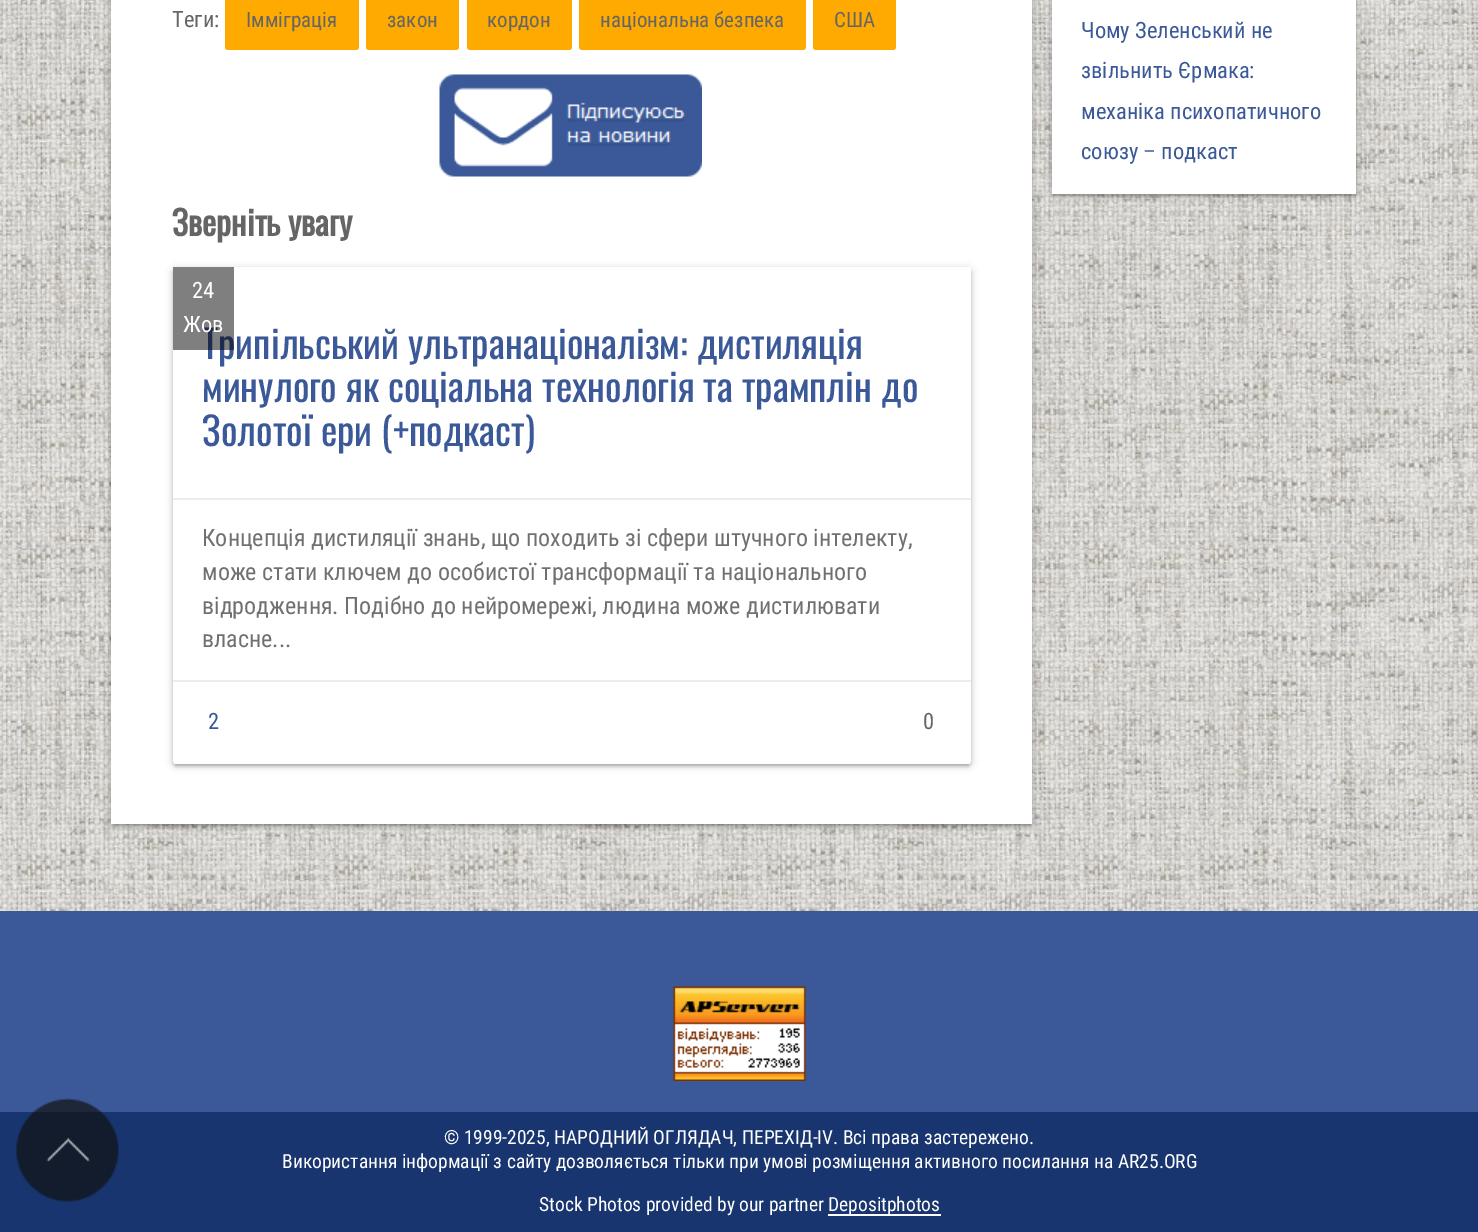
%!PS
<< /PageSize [1478 1232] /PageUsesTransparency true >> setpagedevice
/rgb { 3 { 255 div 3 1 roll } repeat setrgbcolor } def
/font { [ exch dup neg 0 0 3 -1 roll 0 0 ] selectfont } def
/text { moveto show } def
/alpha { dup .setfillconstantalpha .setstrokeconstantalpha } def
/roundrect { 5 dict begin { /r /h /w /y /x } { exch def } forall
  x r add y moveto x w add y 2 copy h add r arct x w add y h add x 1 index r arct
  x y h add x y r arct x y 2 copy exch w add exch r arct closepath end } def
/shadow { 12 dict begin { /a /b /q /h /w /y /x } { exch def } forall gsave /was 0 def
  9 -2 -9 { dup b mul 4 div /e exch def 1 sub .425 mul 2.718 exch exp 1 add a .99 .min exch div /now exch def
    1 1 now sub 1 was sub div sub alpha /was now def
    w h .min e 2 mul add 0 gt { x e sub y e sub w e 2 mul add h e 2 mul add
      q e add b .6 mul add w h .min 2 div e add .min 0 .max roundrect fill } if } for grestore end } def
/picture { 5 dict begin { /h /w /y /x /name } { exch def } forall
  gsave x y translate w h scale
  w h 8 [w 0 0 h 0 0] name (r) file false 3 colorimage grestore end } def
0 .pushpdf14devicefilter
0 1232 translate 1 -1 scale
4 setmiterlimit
255 255 255 rgb
0 0 1478 1232 rectfill
(img_01.rgb) 0 0 1478 911 picture
0 0 0 rgb
111 -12 921 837 0 4 0.2 shadow
114 -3 915 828 0 1 0.12 shadow
111 -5 921 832 0 1.5 0.14 shadow
255 255 255 rgb
111 0 921 824 rectfill
255 170 0 rgb
225 -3 134 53 3 roundrect fill
366 -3 93 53 3 roundrect fill
467 -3 105 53 3 roundrect fill
579 -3 227 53 3 roundrect fill
813 -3 83 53 3 roundrect fill
(img_02.rgb) 439 74 263 103 picture
0 0 0 rgb
173 269 798 496 3 4 0.2 shadow
176 275 792 490 0 1 0.12 shadow
173 270 798 497 3 1.5 0.14 shadow
255 255 255 rgb
173 267 moveto 798 0 rlineto 0 494 rlineto 0 1.5 -1.5 3 -3 3 rcurveto -792 0 rlineto -1.5 0 -3 -1.5 -3 -3 rcurveto closepath fill
236 236 236 rgb
173 498 798 2 rectfill
173 680 798 2 rectfill
0 0 0 rgb
1052 -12 304 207 0 4 0.2 shadow
1055 -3 298 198 0 1 0.12 shadow
1052 -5 304 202 0 1.5 0.14 shadow
255 255 255 rgb
1052 0 304 194 rectfill
59 89 153 rgb
0 911 1478 201 rectfill
24 53 111 rgb
0 1112 1478 120 rectfill
(img_03.rgb) 16 1098 103 104 picture
(img_04.rgb) 673 986 133 95 picture
255 255 255 rgb
828 1214 113 2 rectfill
/RobotoCondensed-Regular 22.5 font
101 101 101 rgb
(Теги:) 172 27 text
/RobotoCondensed-Regular 21 font
(Імміграція) 246 27 text
(закон) 387 27 text
(кордон) 487 27 text
(національна безпека) 600 27 text
(США) 834 27 text
/Oswald-Bold 33.75 font
(Зверніть увагу) 172 236 text
/Oswald-Regular 39 font
59 89 152 rgb
(Трипільський ультранаціоналізм: дистиляція) 202 359 text
0.5 alpha
0 0 0 rgb
173 267 61 83 rectfill
/RobotoCondensed-Regular 22.5 font
1 alpha
255 255 255 rgb
(Жов) 183 332 text
(24) 192 298 text
/Oswald-Regular 39 font
59 89 152 rgb
(минулого як соціальна технологія та трамплін до) 202 402 text
(Золотої ери \(+подкаст\)) 202 446 text
/RobotoCondensed-Regular 24 font
112 112 112 rgb
(Концепція дистиляції знань, що походить зі сфери штучного інтелекту,) 202 546 text
(може стати ключем до особистої трансформації та національного) 202 580 text
(відродження. Подібно до нейромережі, людина може дистилювати) 202 614 text
(власне...) 202 647 text
/RobotoCondensed-Regular 22.5 font
59 89 152 rgb
(2) 208 729 text
101 101 101 rgb
(0) 923 729 text
59 89 152 rgb
(Чому Зеленський не) 1081 38 text
(звільнить Єрмака:) 1081 78 text
(механіка психопатичного) 1081 119 text
(союзу – подкаст) 1081 159 text
/RobotoCondensed-Regular 19.5 font
255 255 255 rgb
(© 1999-2025, НАРОДНИЙ ОГЛЯДАЧ, ПЕРЕХІД-IV. Всі права застережено.) 444 1144 text
(Використання інформації з сайту дозволяється тільки при умові розміщення активного посилання на AR25.ORG) 282 1168 text
(Stock Photos provided by our partner) 539 1211 text
(Depositphotos) 828 1211 text
.poppdf14devicefilter showpage
